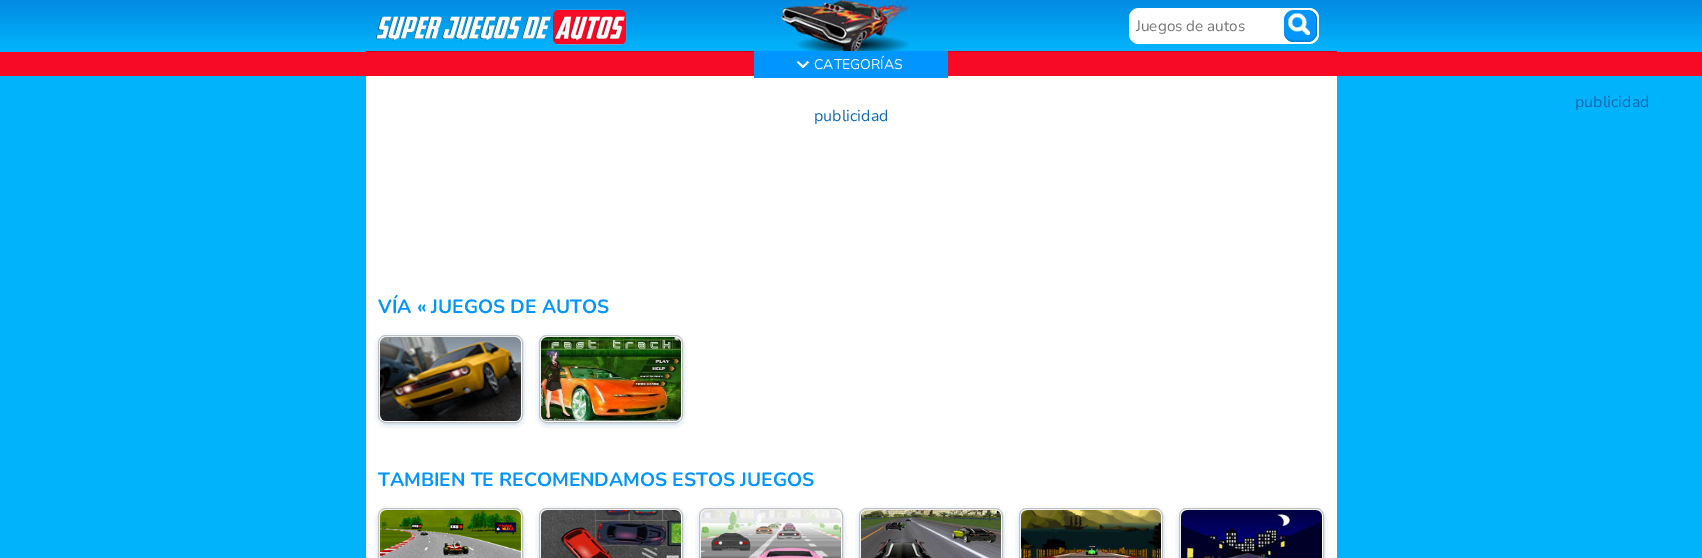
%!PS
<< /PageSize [1702 558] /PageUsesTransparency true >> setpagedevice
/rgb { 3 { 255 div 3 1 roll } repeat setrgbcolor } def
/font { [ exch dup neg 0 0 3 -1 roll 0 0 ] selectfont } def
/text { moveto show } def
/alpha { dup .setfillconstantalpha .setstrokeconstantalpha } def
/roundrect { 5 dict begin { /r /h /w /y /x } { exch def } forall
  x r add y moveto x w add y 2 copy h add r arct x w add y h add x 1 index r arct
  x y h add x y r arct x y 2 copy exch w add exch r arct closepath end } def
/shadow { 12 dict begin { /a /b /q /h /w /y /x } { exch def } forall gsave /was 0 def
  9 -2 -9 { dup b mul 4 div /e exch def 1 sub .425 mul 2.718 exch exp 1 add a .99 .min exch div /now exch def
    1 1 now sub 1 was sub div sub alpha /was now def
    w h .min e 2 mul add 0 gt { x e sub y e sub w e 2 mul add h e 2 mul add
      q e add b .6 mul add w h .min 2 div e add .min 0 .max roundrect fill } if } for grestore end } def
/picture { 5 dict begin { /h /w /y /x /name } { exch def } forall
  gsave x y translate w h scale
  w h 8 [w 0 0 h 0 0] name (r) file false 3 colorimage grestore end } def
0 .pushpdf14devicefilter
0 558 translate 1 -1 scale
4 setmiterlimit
0 179 251 rgb
0 0 1702 558 rectfill
(img_01.rgb) 0 0 1702 76 picture
255 255 255 rgb
366 76 971 482 rectfill
(img_02.rgb) 366 0 971 51 picture
(img_03.rgb) 375 9 252 36 picture
1129 8 190 36 10 roundrect fill
0 149 255 rgb
1284 10 33 32 10 roundrect fill
(img_04.rgb) 1288 13 22 23 picture
4 115 194 rgb
1317 19.5 moveto 0 13 rlineto 0 2 -0.5 4 -2 5.5 rcurveto -0.5 -1 rlineto 1 -1.5 1.5 -3 1.5 -4.5 rcurveto 0 -13 rlineto 0 -5 -4 -9.5 -8.5 -9.5 rcurveto 5 0 9.5 4.5 9.5 9.5 rcurveto closepath fill
3 134 227 rgb
1315 38 moveto -0.5 -1 rlineto -1.5 1.5 -4.5 3 -7 3 rcurveto -14 0 rlineto -5 0 -9.5 -3.5 -9.5 -7.5 rcurveto 0 5 4.5 9.5 9.5 9.5 rcurveto 14 0 rlineto 3 0 6 -1.5 7.5 -4 rcurveto closepath fill
212 7 31 rgb
366 51 971 1 rectfill
0 149 255 rgb
754 51 194 27 rectfill
255 255 255 rgb
798 61 moveto 6 5.5 rlineto -1.5 1.5 rlineto -5.5 -5.5 rlineto closepath fill
802 66.5 moveto 5.5 -5.5 rlineto 1.5 1.5 rlineto -6 5.5 rlineto closepath fill
2 98 166 rgb
383 342 135 78 3 4 1 shadow
255 255 255 rgb
378.5 335.5 144 87 7.5 roundrect gsave fill grestore
192 192 192 rgb
stroke
(img_05.rgb) 380 337 141 84 picture
2 98 166 rgb
544 342 134 78 3 4 1 shadow
255 255 255 rgb
539.5 335.5 143 87 7.5 roundrect gsave fill grestore
192 192 192 rgb
stroke
(img_06.rgb) 541 337 140 84 picture
2 98 166 rgb
383 515 135 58 3 4 1 shadow
255 255 255 rgb
378.5 508.5 144 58 7.5 roundrect gsave fill grestore
192 192 192 rgb
stroke
(img_07.rgb) 380 510 141 48 picture
2 98 166 rgb
544 515 134 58 3 4 1 shadow
255 255 255 rgb
539.5 508.5 143 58 7.5 roundrect gsave fill grestore
192 192 192 rgb
stroke
(img_08.rgb) 541 510 140 48 picture
2 98 166 rgb
704 515 134 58 3 4 1 shadow
255 255 255 rgb
699.5 508.5 143 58 7.5 roundrect gsave fill grestore
192 192 192 rgb
stroke
(img_09.rgb) 701 510 140 48 picture
2 98 166 rgb
864 515 134 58 3 4 1 shadow
255 255 255 rgb
859.5 508.5 143 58 7.5 roundrect gsave fill grestore
192 192 192 rgb
stroke
(img_10.rgb) 861 510 140 48 picture
2 98 166 rgb
1024 515 134 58 3 4 1 shadow
255 255 255 rgb
1019.5 508.5 143 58 7.5 roundrect gsave fill grestore
192 192 192 rgb
stroke
(img_11.rgb) 1021 510 140 48 picture
2 98 166 rgb
1184 515 135 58 3 4 1 shadow
255 255 255 rgb
1179.5 508.5 144 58 7.5 roundrect gsave fill grestore
192 192 192 rgb
stroke
(img_12.rgb) 1181 510 141 48 picture
/Nunito-Regular 15.25 font
117 117 117 rgb
(Juegos de autos) 1136 31 text
/Nunito-Regular 14 font
255 255 255 rgb
(CATEGORÍAS) 814 69 text
/Nunito-Regular 16 font
17 104 178 rgb
(publicidad) 814 121 text
/Nunito-Bold 19.2 font
0 149 255 rgb
(VÍA « JUEGOS DE AUTOS) 378 313 text
(TAMBIEN TE RECOMENDAMOS ESTOS JUEGOS) 378 486 text
/Nunito-Regular 16 font
17 104 178 rgb
(publicidad) 1575 107 text
.poppdf14devicefilter showpage
